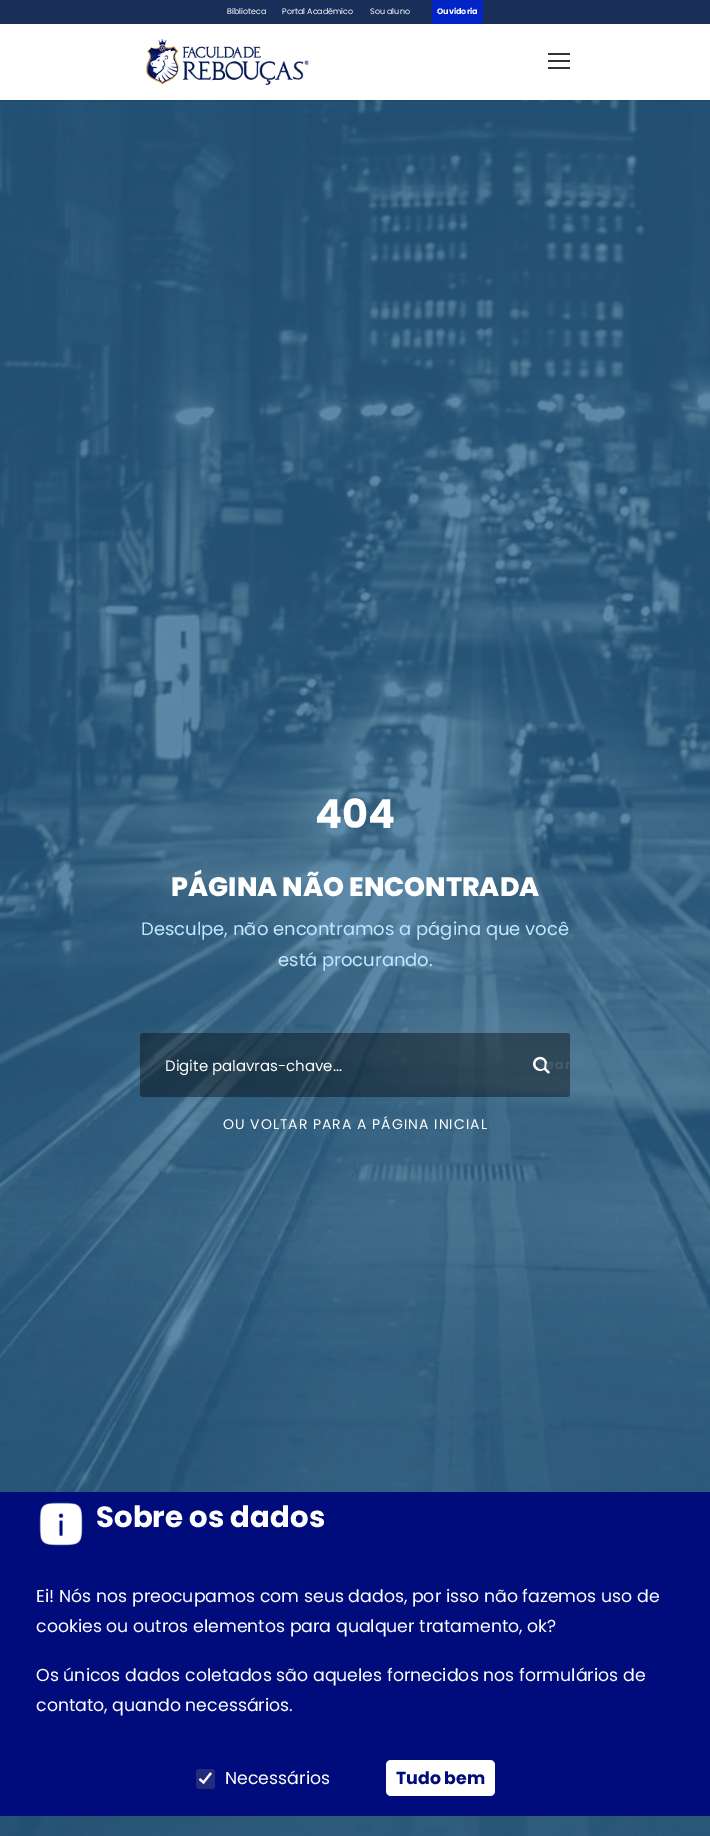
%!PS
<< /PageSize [710 1836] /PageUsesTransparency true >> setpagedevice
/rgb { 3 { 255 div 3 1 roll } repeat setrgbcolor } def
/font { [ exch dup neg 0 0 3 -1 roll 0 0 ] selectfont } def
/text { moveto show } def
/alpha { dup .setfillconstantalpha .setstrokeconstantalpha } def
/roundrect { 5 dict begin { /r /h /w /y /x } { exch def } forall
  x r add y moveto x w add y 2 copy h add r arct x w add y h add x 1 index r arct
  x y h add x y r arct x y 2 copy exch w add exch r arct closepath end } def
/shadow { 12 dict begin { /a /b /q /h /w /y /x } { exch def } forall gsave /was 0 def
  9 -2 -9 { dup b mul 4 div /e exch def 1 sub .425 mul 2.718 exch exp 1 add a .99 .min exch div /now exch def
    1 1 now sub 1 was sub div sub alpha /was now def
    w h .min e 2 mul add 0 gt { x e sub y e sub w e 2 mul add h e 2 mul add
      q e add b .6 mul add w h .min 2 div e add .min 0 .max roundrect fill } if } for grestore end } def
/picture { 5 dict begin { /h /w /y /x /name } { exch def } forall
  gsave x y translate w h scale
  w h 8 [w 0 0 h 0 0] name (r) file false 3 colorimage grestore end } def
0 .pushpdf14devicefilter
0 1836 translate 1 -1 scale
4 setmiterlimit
25 47 89 rgb
0 0 710 1836 rectfill
0 36 198 rgb
432 0 51 24 rectfill
35 97 142 rgb
0 100 710 1736 rectfill
(img_02.rgb) 0 100 710 1736 picture
0 0 0 rgb
0 25 710 76 0 1 0.1 shadow
255 255 255 rgb
0 24 710 76 rectfill
(img_01.rgb) 146 39 163 46 picture
51 51 51 rgb
548 53 22 2 rectfill
548 60 22 2 rectfill
548 67 22 2 rectfill
0.4 alpha
0 0 0 rgb
140 1033 430 64 3 roundrect fill
1 alpha
(img_03.rgb) 533 1056 17 18 picture
0 12 124 rgb
0 1492 710 324 rectfill
(img_04.rgb) 39 1502 44 44 picture
35 44 122 rgb
196 1769 19 20 3 roundrect fill
255 255 255 rgb
2.1 setlinewidth
199.5 1779 moveto 4 3.5 rlineto 7.5 -9.5 rlineto stroke
386 1760 109 36 5 roundrect fill
/Poppins-Regular 8 font
(Biblioteca) 227 14 text
(Portal Acadêmico) 282 14 text
(Sou aluno) 370 14 text
/Poppins-Bold 8 font
(Ouvidoria) 437 14 text
/Poppins-Bold 40 font
(404) 315 828 text
/Poppins-ExtraBold 26.7 font
(PÁGINA NÃO ENCONTRADA) 171 896 text
/Poppins-Regular 18 font
195 231 255 rgb
(Desculpe, não encontramos a página que você) 141 935 text
(está procurando.) 278 966 text
/Poppins-Regular 15 font
255 255 255 rgb
(Digite palavras-chave...) 165 1071 text
/Poppins-Bold 13 font
67 90 106 rgb
537 1069 moveto 1 0 (Sear) ashow
/Poppins-Regular 14 font
255 255 255 rgb
223 1129 moveto 1 0 (OU VOLTAR PARA A PÁGINA INICIAL) ashow
/Poppins-Bold 29.25 font
(Sobre os dados) 96 1527 text
/Poppins-Regular 17.35 font
(Ei! Nós nos preocupamos com seus dados, por isso não fazemos uso de) 36 1602 text
(cookies ou outros elementos para qualquer tratamento, ok?) 36 1632 text
(Os únicos dados coletados são aqueles fornecidos nos formulários de) 36 1681 text
(contato, quando necessários.) 36 1711 text
(Necessários) 225 1784 text
/Poppins-Bold 17.35 font
0 12 124 rgb
(Tudo bem) 396 1784 text
.poppdf14devicefilter showpage
